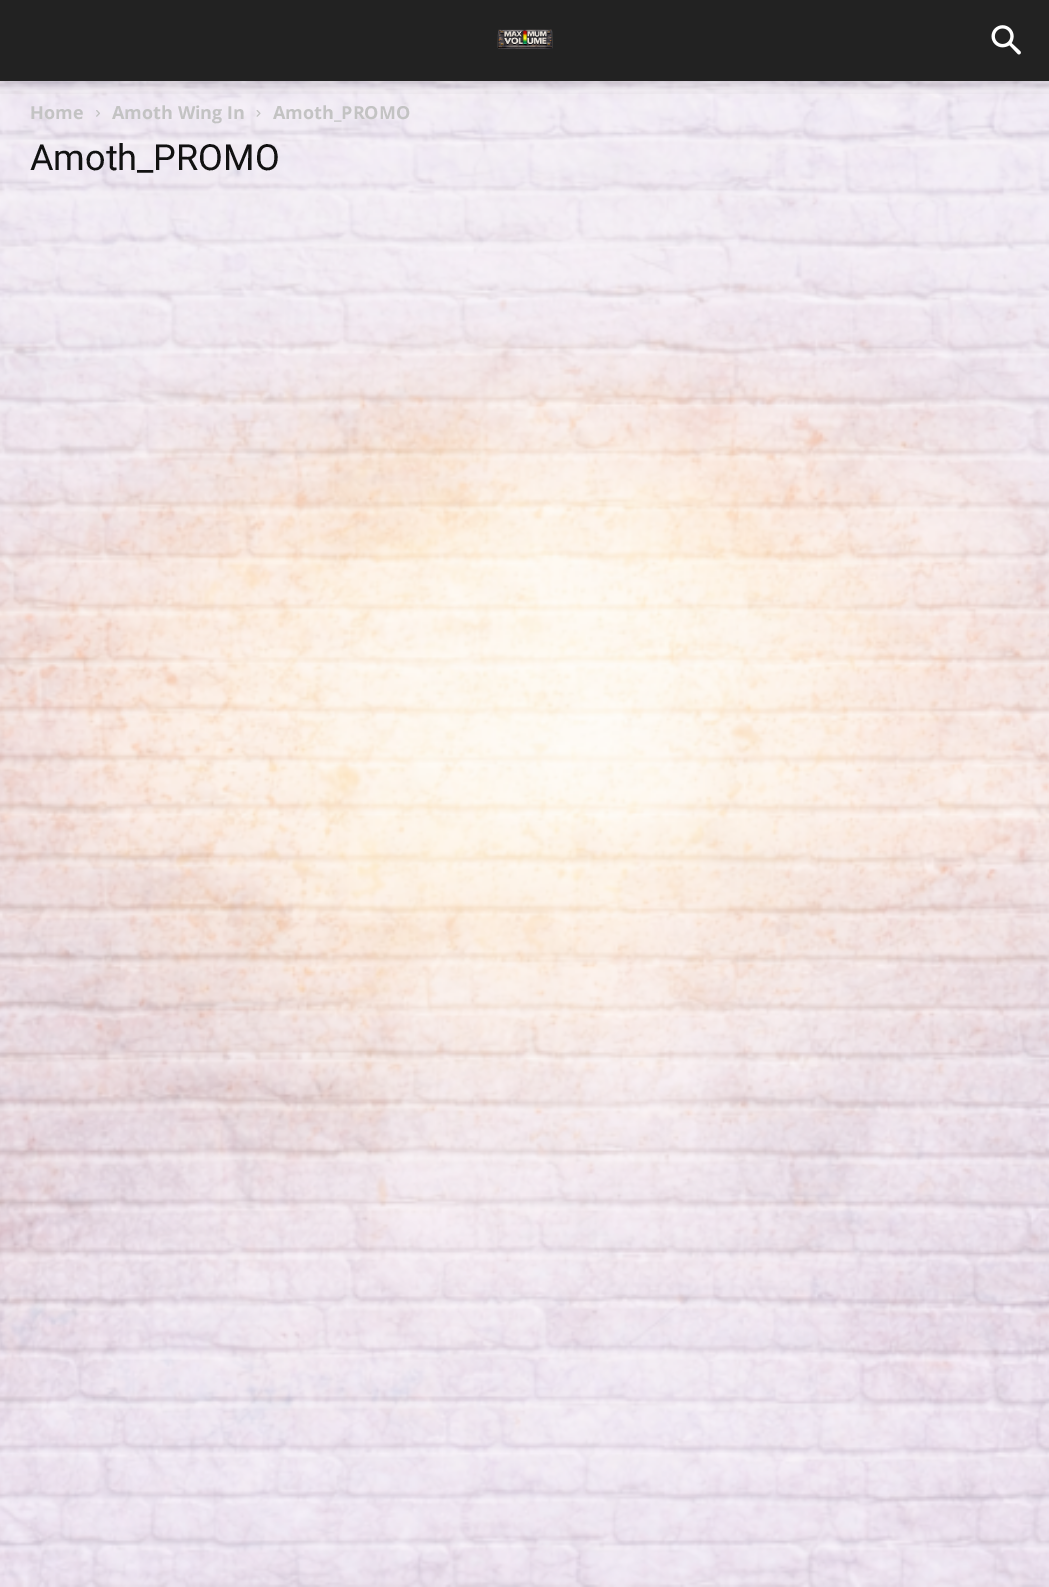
%!PS
<< /PageSize [1049 1587] >> setpagedevice
/rgb { 3 { 255 div 3 1 roll } repeat setrgbcolor } def
/font { [ exch dup neg 0 0 3 -1 roll 0 0 ] selectfont } def
/text { moveto show } def
/picture { 5 dict begin { /h /w /y /x /name } { exch def } forall
  gsave x y translate w h scale
  w h 8 [w 0 0 h 0 0] name (r) file false 3 colorimage grestore end } def
0 1587 translate 1 -1 scale
4 setmiterlimit
255 255 255 rgb
0 0 1049 1587 rectfill
(img_01.rgb) 0 81 1049 1506 picture
34 34 34 rgb
0 0 1049 81 rectfill
(img_02.rgb) 497 29 56 20 picture
(img_03.rgb) 991 25 30 30 picture
(img_04.rgb) 0 81 1049 13 picture
(img_05.rgb) 96 110 4 7 picture
(img_06.rgb) 256 110 5 7 picture
/OpenSans-Bold 18 font
195 195 195 rgb
(Home) 30 119 text
(Amoth Wing In) 112 119 text
(Amoth_PROMO) 273 119 text
/Roboto-Regular 36 font
17 17 17 rgb
(Amoth_PROMO) 30 170 text
showpage
